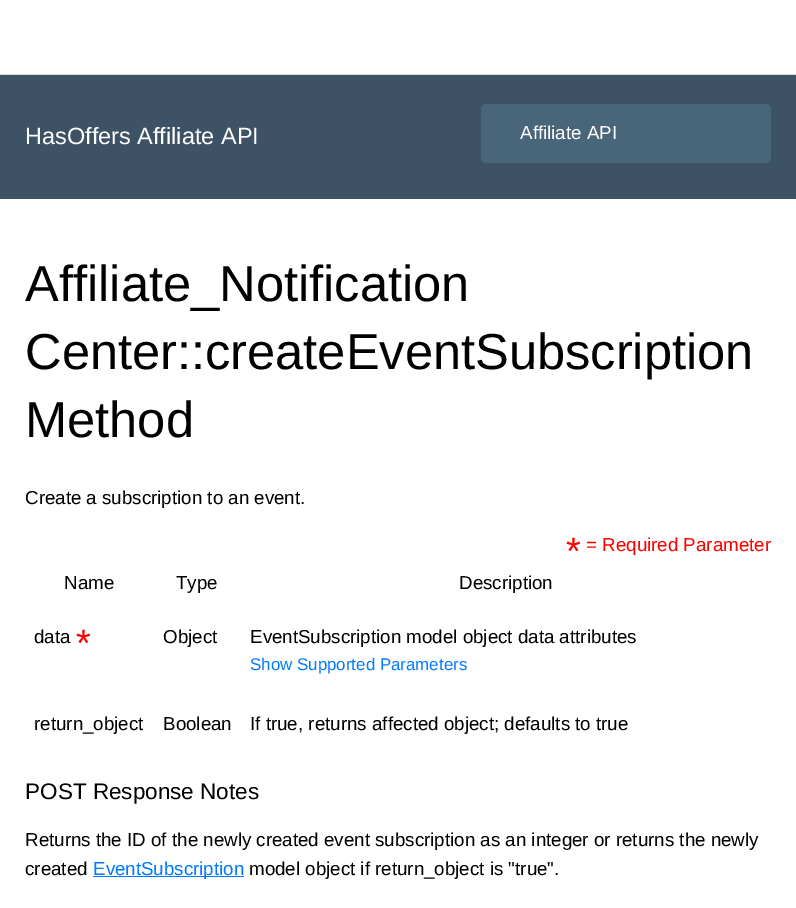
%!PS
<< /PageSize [796 908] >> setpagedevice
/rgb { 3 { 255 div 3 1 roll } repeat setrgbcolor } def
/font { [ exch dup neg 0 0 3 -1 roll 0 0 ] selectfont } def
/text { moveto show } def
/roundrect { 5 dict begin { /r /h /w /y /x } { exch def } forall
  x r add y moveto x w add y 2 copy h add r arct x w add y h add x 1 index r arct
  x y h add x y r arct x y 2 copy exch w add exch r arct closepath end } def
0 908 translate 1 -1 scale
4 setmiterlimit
255 255 255 rgb
0 0 796 908 rectfill
217 217 214 rgb
0 74 796 1 rectfill
61 82 101 rgb
0 75 796 124 rectfill
73 101 122 rgb
481 104 290 59 5 roundrect fill
0 122 255 rgb
93 876 151 1 rectfill
/LiberationSans-Regular 23.5 font
255 255 255 rgb
(HasOffers Affiliate API) 25 144 text
/LiberationSans-Regular 18.75 font
(Affiliate API) 520 139 text
/LiberationSans-Regular 50.6 font
0 0 0 rgb
(Affiliate_Notification) 25 301 text
(Center::createEventSubscription) 25 369 text
(Method) 25 437 text
/LiberationSans-Regular 18.75 font
(Create a subscription to an event.) 25 504 text
/LiberationSans-Regular 38 font
255 0 0 rgb
(*) 566 564 text
/LiberationSans-Regular 18.75 font
(= Required Parameter) 586 551 text
0 0 0 rgb
(Name) 64 589 text
(Type) 176 589 text
(Description) 459 589 text
(data) 34 643 text
/LiberationSans-Regular 38 font
255 0 0 rgb
(*) 76 656 text
/LiberationSans-Regular 18.75 font
0 0 0 rgb
(Object) 163 643 text
(EventSubscription model object data attributes) 250 643 text
/LiberationSans-Regular 16.9 font
0 122 255 rgb
(Show Supported Parameters) 250 670 text
/LiberationSans-Regular 18.75 font
0 0 0 rgb
(return_object) 34 730 text
(Boolean) 163 730 text
(If true, returns affected object; defaults to true) 250 730 text
/LiberationSans-Regular 22.5 font
(POST Response Notes) 25 799 text
/LiberationSans-Regular 18.75 font
(Returns the ID of the newly created event subscription as an integer or returns the newly) 25 846 text
(created) 25 875 text
0 122 255 rgb
(EventSubscription) 93 875 text
0 0 0 rgb
(model object if return_object is "true".) 249 875 text
showpage
